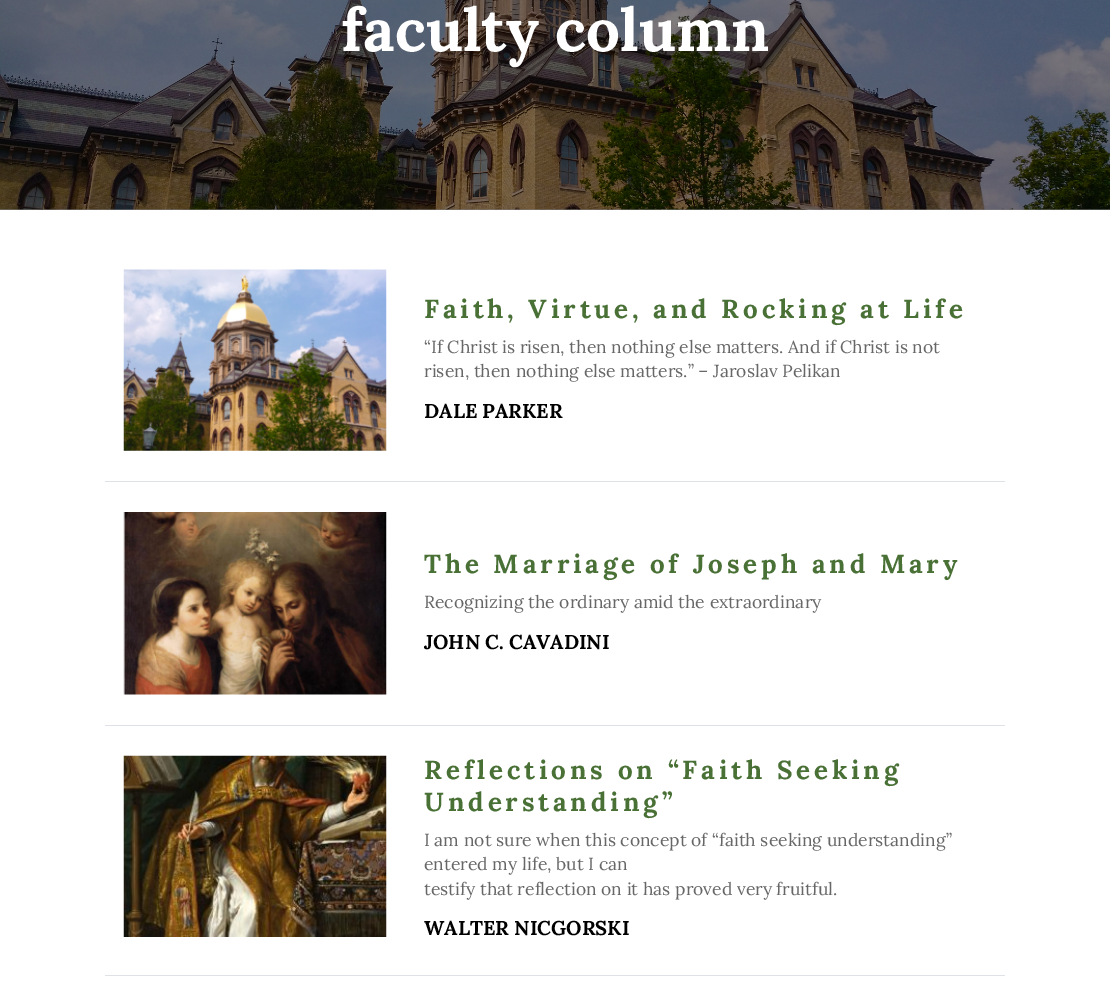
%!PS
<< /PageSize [1110 999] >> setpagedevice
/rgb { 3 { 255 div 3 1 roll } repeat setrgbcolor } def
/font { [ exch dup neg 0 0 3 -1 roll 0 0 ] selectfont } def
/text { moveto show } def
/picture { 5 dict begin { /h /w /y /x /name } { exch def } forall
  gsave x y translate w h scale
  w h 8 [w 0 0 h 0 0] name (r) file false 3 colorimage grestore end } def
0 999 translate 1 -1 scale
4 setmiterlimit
255 255 255 rgb
0 0 1110 999 rectfill
128 128 128 rgb
0 209 1110 1 rectfill
(img_01.rgb) 0 0 1110 210 picture
222 226 230 rgb
105 481 900 1 rectfill
(img_02.rgb) 123 269 264 182 picture
105 725 900 1 rectfill
(img_03.rgb) 123 512 264 183 picture
105 975 900 1 rectfill
(img_04.rgb) 123 755 264 182 picture
/Lora-Bold 60 font
255 255 255 rgb
(faculty column) 341 51 text
/Lora-Bold 26 font
73 113 54 rgb
424 318 moveto 3.9 0 (Faith, Virtue, and Rocking at Life) ashow
/Lora-Regular 17.5 font
103 103 103 rgb
(“If Christ is risen, then nothing else matters. And if Christ is not) 424 353 text
(risen, then nothing else matters.” – Jaroslav Pelikan) 424 377 text
/Lora-Bold 20 font
0 0 0 rgb
(DALE PARKER) 424 418 text
/Lora-Bold 26 font
73 113 54 rgb
424 573 moveto 3.9 0 (The Marriage of Joseph and Mary) ashow
/Lora-Regular 17.5 font
103 103 103 rgb
(Recognizing the ordinary amid the extraordinary) 424 608 text
/Lora-Bold 20 font
0 0 0 rgb
(JOHN C. CAVADINI) 424 649 text
/Lora-Bold 26 font
73 113 54 rgb
424 779 moveto 3.9 0 (Reflections on “Faith Seeking) ashow
424 811 moveto 3.9 0 (Understanding”) ashow
/Lora-Regular 17.5 font
103 103 103 rgb
(I am not sure when this concept of “faith seeking understanding”) 424 846 text
(entered my life, but I can) 424 870 text
(testify that reflection on it has proved very fruitful.) 424 895 text
/Lora-Bold 20 font
0 0 0 rgb
(WALTER NICGORSKI) 424 935 text
showpage
